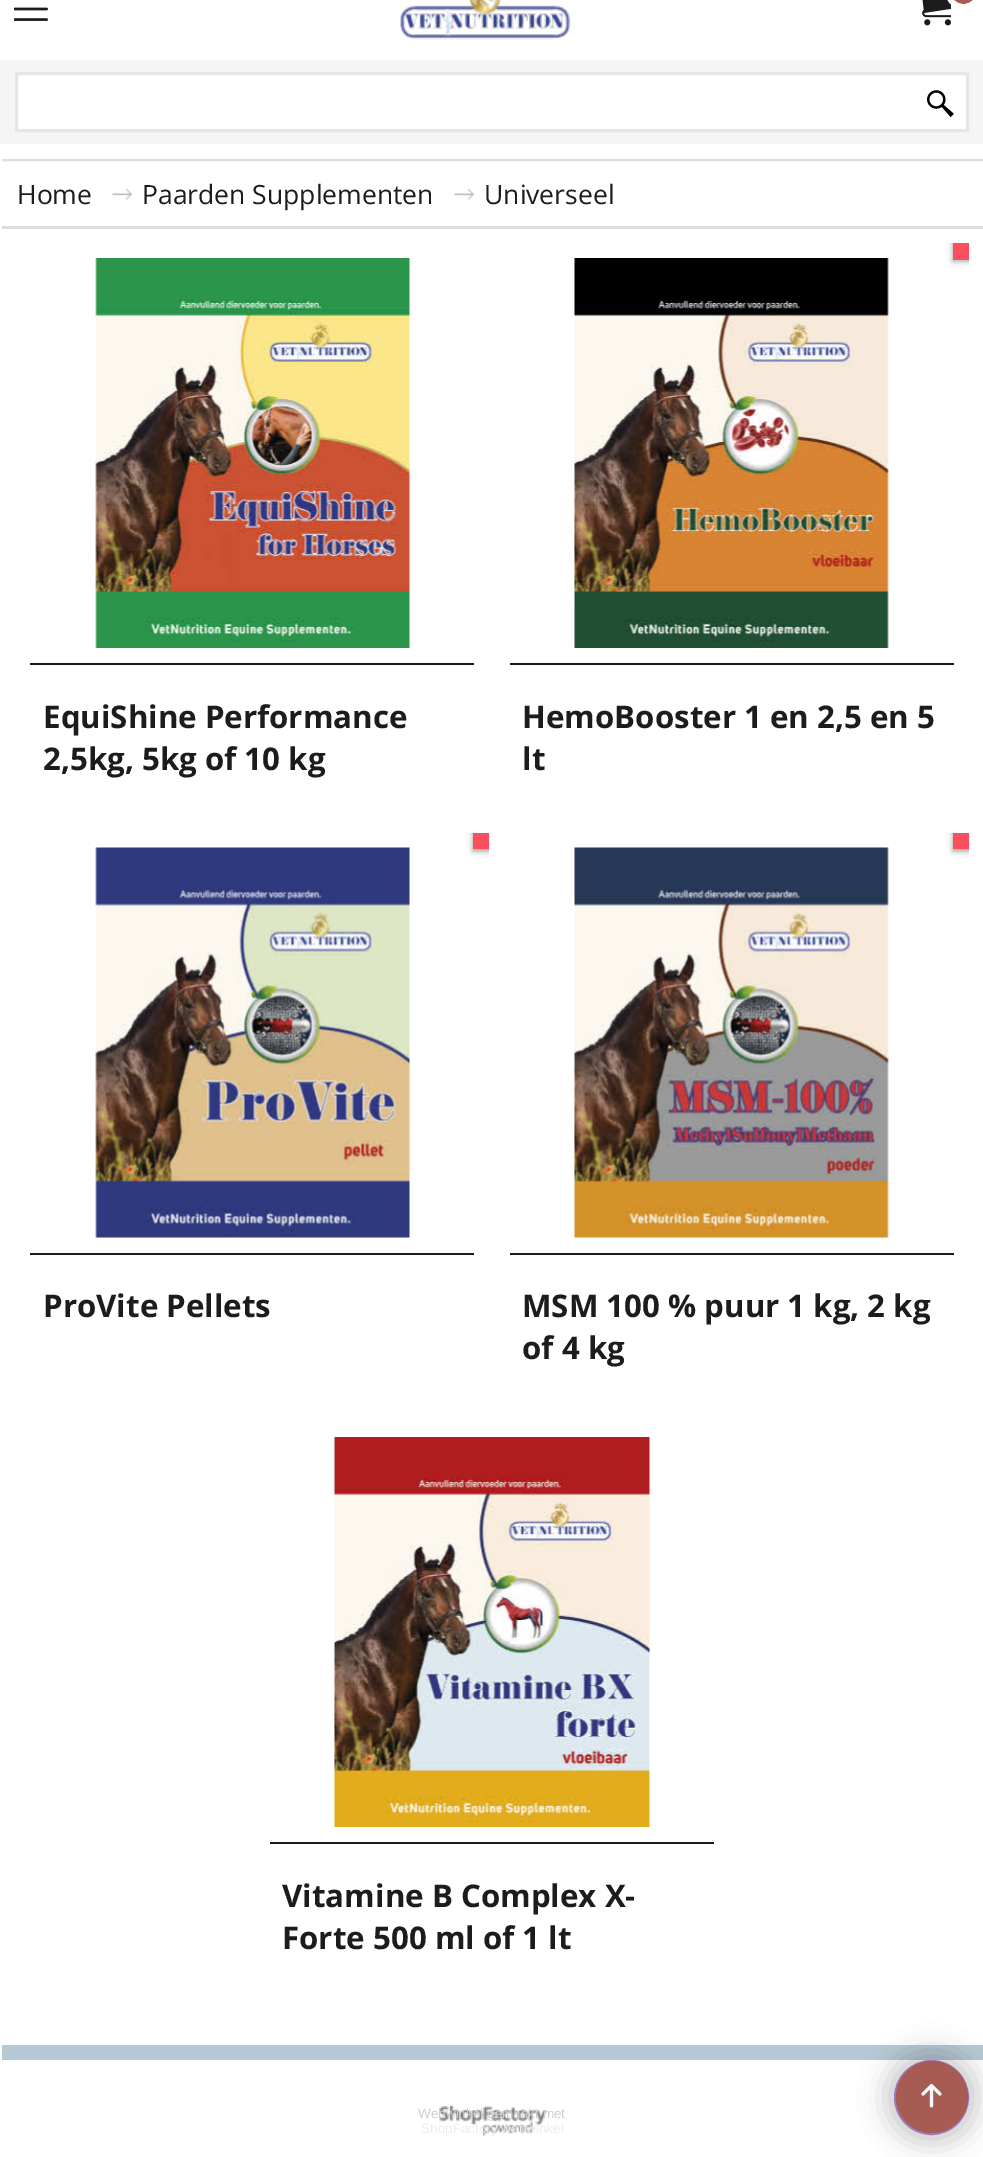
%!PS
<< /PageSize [983 2157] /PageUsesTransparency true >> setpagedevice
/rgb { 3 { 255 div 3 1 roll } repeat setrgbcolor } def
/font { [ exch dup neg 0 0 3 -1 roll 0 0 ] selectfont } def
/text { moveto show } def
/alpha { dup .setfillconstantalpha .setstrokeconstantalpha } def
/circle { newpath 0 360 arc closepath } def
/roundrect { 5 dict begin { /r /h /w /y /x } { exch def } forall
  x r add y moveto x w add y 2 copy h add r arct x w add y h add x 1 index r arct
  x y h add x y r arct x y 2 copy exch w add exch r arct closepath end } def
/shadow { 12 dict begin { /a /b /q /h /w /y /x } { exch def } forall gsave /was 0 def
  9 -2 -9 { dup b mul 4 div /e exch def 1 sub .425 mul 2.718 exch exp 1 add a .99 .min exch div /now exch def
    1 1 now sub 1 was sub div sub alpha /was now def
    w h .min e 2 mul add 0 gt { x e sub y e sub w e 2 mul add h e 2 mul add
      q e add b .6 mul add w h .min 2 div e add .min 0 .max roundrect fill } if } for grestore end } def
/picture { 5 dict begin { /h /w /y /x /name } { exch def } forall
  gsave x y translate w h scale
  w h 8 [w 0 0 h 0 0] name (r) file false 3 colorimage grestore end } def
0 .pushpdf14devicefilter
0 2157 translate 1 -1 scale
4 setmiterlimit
255 255 255 rgb
0 0 983 2157 rectfill
(img_01.rgb) 14 7 34 14 picture
(img_02.rgb) 400 0 171 40 picture
(img_03.rgb) 922 0 29 26 picture
167 92 83 rgb
946.5 -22.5 34 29 17 roundrect gsave fill grestore
255 255 255 rgb
5 setlinewidth
stroke
245 245 246 rgb
0 60 983 84 rectfill
255 255 255 rgb
16.5 73.5 moveto 951 0 rlineto 0 57 rlineto -951 0 rlineto closepath gsave fill grestore
230 230 230 rgb
3 setlinewidth
stroke
(img_04.rgb) 927 90 27 28 picture
gsave
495 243 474 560 rectclip
50 50 50 rgb
953 237 24 24 0 3 0.5 shadow
grestore
222 222 222 rgb
2 228 981 1 rectfill
gsave
2 146 981 1944 rectclip
2 setlinewidth
-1 160 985 67 rectstroke
grestore
(img_05.rgb) 112 189 20 11 picture
(img_05.rgb) 454 189 20 11 picture
28 28 28 rgb
30 663 444 2 rectfill
(img_06.rgb) 95 258 315 390 picture
250 80 93 rgb
953 243 16 17 rectfill
28 28 28 rgb
510 663 444 2 rectfill
(img_07.rgb) 574 258 315 390 picture
gsave
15 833 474 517 rectclip
50 50 50 rgb
473 827 24 24 0 3 0.5 shadow
grestore
250 80 93 rgb
473 833 16 16 rectfill
28 28 28 rgb
30 1253 444 2 rectfill
(img_08.rgb) 95 847 315 391 picture
gsave
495 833 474 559 rectclip
50 50 50 rgb
953 827 24 24 0 3 0.5 shadow
grestore
250 80 93 rgb
953 833 16 16 rectfill
28 28 28 rgb
510 1253 444 2 rectfill
(img_09.rgb) 574 847 315 391 picture
270 1842 444 2 rectfill
(img_10.rgb) 334 1437 316 390 picture
182 201 212 rgb
2 2045 981 15 rectfill
(img_11.rgb) 439 2106 108 30 picture
0 0 0 rgb
885 2051 93 93 46.5 13 0.2 shadow
167 92 83 rgb
931.5 2097.5 36.5 circle gsave fill grestore
158 117 188 rgb
2 setlinewidth
stroke
167 92 83 rgb
932 2097 36 circle fill
(img_12.rgb) 921 2083 21 25 picture
/OpenSans-Regular 26.5 font
28 28 28 rgb
(Home) 17 204 text
(Paarden Supplementen) 142 204 text
(Universeel) 484 204 text
/OpenSans-Bold 31.25 font
(EquiShine Performance) 43 728 text
(2,5kg, 5kg of 10 kg) 43 770 text
(HemoBooster 1 en 2,5 en 5) 522 728 text
(lt) 522 770 text
(ProVite Pellets) 43 1317 text
(MSM 100 % puur 1 kg, 2 kg) 522 1317 text
(of 4 kg) 522 1359 text
(Vitamine B Complex X-) 282 1907 text
(Forte 500 ml of 1 lt) 282 1949 text
/LiberationSans-Regular 13.5 font
207 207 207 rgb
(Webwinkel gemaakt met) 418 2118 text
236 236 236 rgb
(ShopFactory webwinkel) 421 2133 text
.poppdf14devicefilter showpage
